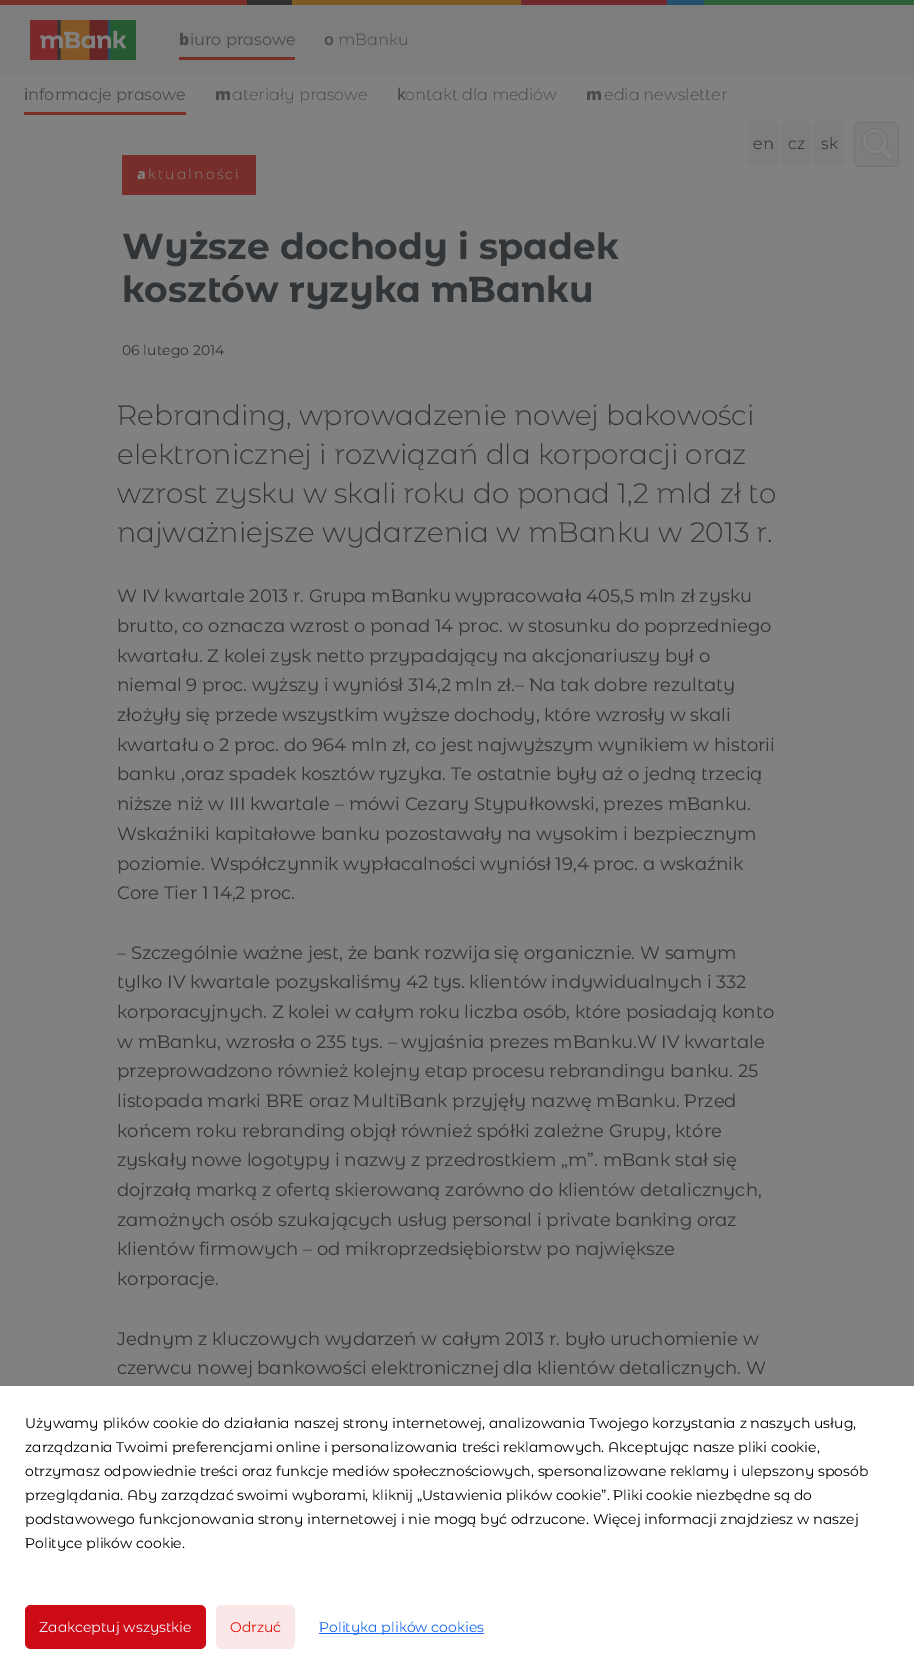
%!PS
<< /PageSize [914 1674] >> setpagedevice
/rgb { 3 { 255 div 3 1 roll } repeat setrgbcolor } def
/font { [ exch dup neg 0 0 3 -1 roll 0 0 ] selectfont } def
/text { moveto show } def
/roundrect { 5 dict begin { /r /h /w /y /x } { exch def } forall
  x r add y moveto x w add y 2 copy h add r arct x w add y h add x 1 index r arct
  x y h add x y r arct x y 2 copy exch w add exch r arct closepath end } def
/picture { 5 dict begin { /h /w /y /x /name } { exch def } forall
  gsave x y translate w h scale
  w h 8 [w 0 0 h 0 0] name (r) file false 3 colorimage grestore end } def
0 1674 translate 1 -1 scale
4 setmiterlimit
129 129 129 rgb
0 0 914 1674 rectfill
119 48 41 rgb
0 0 247 5 rectfill
49 47 45 rgb
247 0 45 5 rectfill
125 89 37 rgb
292 0 229 5 rectfill
111 41 46 rgb
521 0 146 5 rectfill
37 80 105 rgb
667 0 37 5 rectfill
46 95 56 rgb
704 0 210 5 rectfill
125 125 125 rgb
0 5 914 70 rectfill
(img_01.rgb) 30 20 106 40 picture
119 45 40 rgb
179 57 116 3 rectfill
24 112 162 3 rectfill
125 125 125 rgb
748 121 30 45 5 roundrect fill
781 121 30 45 5 roundrect fill
814 121 30 45 5 roundrect fill
(img_02.rgb) 854 122 45 45 picture
119 45 41 rgb
122 155 134 40 rectfill
255 255 255 rgb
0 1386 914 288 rectfill
205 11 22 rgb
25 1605 181 44 6 roundrect fill
250 231 232 rgb
216 1605 79 44 6 roundrect fill
26 105 239 rgb
319 1633 165 1 rectfill
/NotoSans-Black 16 font
73 73 73 rgb
(b) 179 45 text
/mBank-Regular 16 font
(iuro prasowe) 190 45 text
/NotoSans-SemiBold 16 font
(o) 324 45 text
/mBank-Light 16 font
(mBanku) 338 45 text
/NotoSans-Medium 16 font
(i) 24 100 text
/mBank-Regular 16 font
(nformacje prasowe) 28 100 text
/NotoSans-Black 16 font
(m) 215 100 text
/mBank-Light 16 font
(ateriały prasowe) 232 100 text
/NotoSans-Medium 16 font
(k) 397 100 text
/mBank-Light 16 font
(ontakt dla mediów) 405 100 text
/NotoSans-Black 16 font
(m) 586 100 text
/mBank-Light 16 font
(edia newsletter) 604 100 text
37 37 37 rgb
(en) 753 149 text
(cz) 788 149 text
(sk) 821 149 text
/NotoSans-Black 14 font
129 129 129 rgb
137 179 moveto 2.1 0 (a) ashow
/mBank-Light 14 font
148 179 moveto 2.1 0 (ktualności) ashow
/mBank-Bold 36 font
49 53 56 rgb
(Wyższe dochody i spadek) 122 259 text
(kosztów ryzyka mBanku) 122 302 text
/mBank-Regular 14 font
(06 lutego 2014) 122 355 text
/mBank-Light 28 font
(Rebranding, wprowadzenie nowej bakowości) 117 425 text
(elektronicznej i rozwiązań dla korporacji oraz) 117 464 text
(wzrost zysku w skali roku do ponad 1,2 mld zł to) 117 503 text
(najważniejsze wydarzenia w mBanku w 2013 r.) 117 542 text
/mBank-Regular 18 font
(W IV kwartale 2013 r. Grupa mBanku wypracowała 405,5 mln zł zysku) 117 602 text
(brutto, co oznacza wzrost o ponad 14 proc. w stosunku do poprzedniego) 117 632 text
(kwartału. Z kolei zysk netto przypadający na akcjonariuszy był o) 117 662 text
(niemal 9 proc. wyższy i wyniósł 314,2 mln zł.– Na tak dobre rezultaty) 117 691 text
(złożyły się przede wszystkim wyższe dochody, które wzrosły w skali) 117 721 text
(kwartału o 2 proc. do 964 mln zł, co jest najwyższym wynikiem w historii) 117 751 text
(banku ,oraz spadek kosztów ryzyka. Te ostatnie były aż o jedną trzecią) 117 780 text
(niższe niż w III kwartale – mówi Cezary Stypułkowski, prezes mBanku.) 117 810 text
(Wskaźniki kapitałowe banku pozostawały na wysokim i bezpiecznym) 117 840 text
(poziomie. Współczynnik wypłacalności wyniósł 19,4 proc. a wskaźnik) 117 870 text
(Core Tier 1 14,2 proc.) 117 899 text
(– Szczególnie ważne jest, że bank rozwija się organicznie. W samym) 117 959 text
(tylko IV kwartale pozyskaliśmy 42 tys. klientów indywidualnych i 332) 117 988 text
(korporacyjnych. Z kolei w całym roku liczba osób, które posiadają konto) 117 1018 text
(w mBanku, wzrosła o 235 tys. – wyjaśnia prezes mBanku.W IV kwartale) 117 1048 text
(przeprowadzono również kolejny etap procesu rebrandingu banku. 25) 117 1077 text
(listopada marki BRE oraz MultiBank przyjęły nazwę mBanku. Przed) 117 1107 text
(końcem roku rebranding objął również spółki zależne Grupy, które) 117 1137 text
(zyskały nowe logotypy i nazwy z przedrostkiem „m”. mBank stał się) 117 1166 text
(dojrzałą marką z ofertą skierowaną zarówno do klientów detalicznych,) 117 1196 text
(zamożnych osób szukających usług personal i private banking oraz) 117 1226 text
(klientów firmowych – od mikroprzedsiębiorstw po największe) 117 1255 text
(korporacje.) 117 1285 text
(Jednym z kluczowych wydarzeń w całym 2013 r. było uruchomienie w) 117 1345 text
(czerwcu nowej bankowości elektronicznej dla klientów detalicznych. W) 117 1374 text
/mBank-Regular 14 font
0 0 0 rgb
(Używamy plików cookie do działania naszej strony internetowej, analizowania Twojego korzystania z naszych usług,) 25 1428 text
(zarządzania Twoimi preferencjami online i personalizowania treści reklamowych. Akceptując nasze pliki cookie,) 25 1452 text
(otrzymasz odpowiednie treści oraz funkcje mediów społecznościowych, spersonalizowane reklamy i ulepszony sposób) 25 1476 text
(przeglądania. Aby zarządzać swoimi wyborami, kliknij „Ustawienia plików cookie”. Pliki cookie niezbędne są do) 25 1500 text
(podstawowego funkcjonowania strony internetowej i nie mogą być odrzucone. Więcej informacji znajdziesz w naszej) 25 1524 text
(Polityce plików cookie.) 25 1548 text
245 244 255 rgb
(Zaakceptuj wszystkie) 39 1632 text
228 22 10 rgb
(Odrzuć) 230 1632 text
26 105 239 rgb
(Polityka plików cookies) 319 1632 text
showpage
